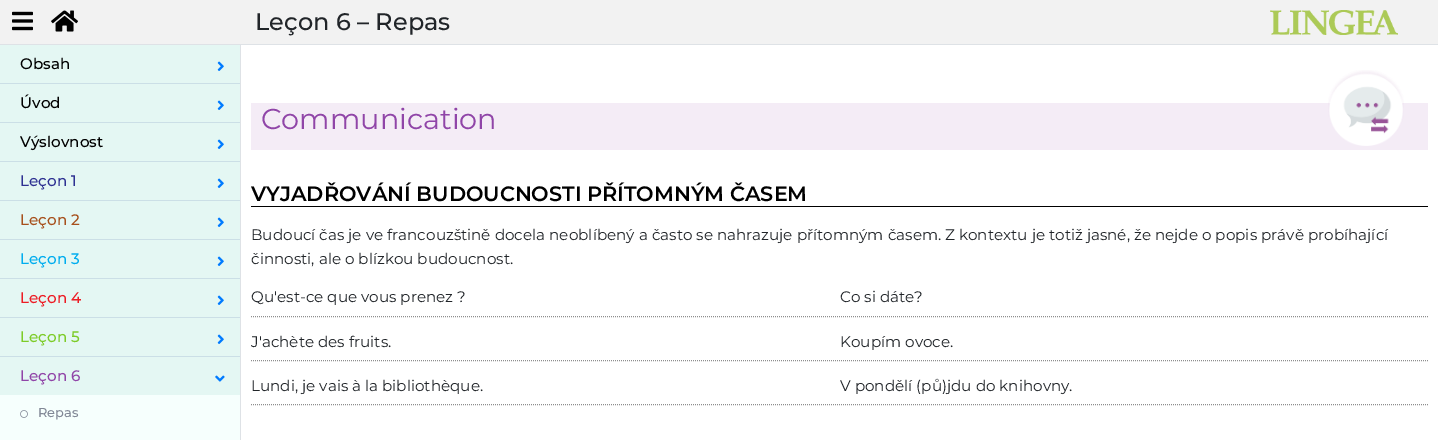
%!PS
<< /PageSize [1438 440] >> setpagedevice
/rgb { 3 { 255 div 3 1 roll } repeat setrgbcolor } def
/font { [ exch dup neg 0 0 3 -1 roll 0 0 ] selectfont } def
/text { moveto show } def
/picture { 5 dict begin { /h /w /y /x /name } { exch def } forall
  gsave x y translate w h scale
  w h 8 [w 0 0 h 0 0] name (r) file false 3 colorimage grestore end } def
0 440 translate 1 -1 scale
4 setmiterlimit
255 255 255 rgb
0 0 1438 440 rectfill
242 242 242 rgb
0 0 1438 44 rectfill
222 226 230 rgb
0 44 1438 1 rectfill
(img_01.rgb) 12 11 21 20 picture
(img_02.rgb) 51 10 27 22 picture
(img_03.rgb) 1270 10 128 25 picture
228 247 243 rgb
0 45 240 350 rectfill
222 226 230 rgb
240 45 1 395 rectfill
203 223 230 rgb
0 83 240 1 rectfill
(img_04.rgb) 217 61 7 10 picture
0 122 240 1 rectfill
(img_04.rgb) 217 100 7 10 picture
0 161 240 1 rectfill
(img_04.rgb) 217 139 7 10 picture
0 200 240 1 rectfill
(img_04.rgb) 217 178 7 10 picture
0 239 240 1 rectfill
(img_04.rgb) 217 217 7 10 picture
0 278 240 1 rectfill
(img_04.rgb) 217 256 7 10 picture
0 317 240 1 rectfill
(img_04.rgb) 217 295 7 10 picture
0 356 240 1 rectfill
(img_04.rgb) 217 334 7 10 picture
(img_05.rgb) 215 375 10 7 picture
246 255 253 rgb
0 395 240 45 rectfill
(img_06.rgb) 20 410 8 8 picture
244 236 246 rgb
251 103 1177 47 rectfill
(img_07.rgb) 1328 70 76 76 picture
0 0 0 rgb
251 206 1177 1 rectfill
142 142 142 rgb
[1 1] 0 setdash
251 316.5 moveto 1177 0 rlineto stroke
251 360.5 moveto 1177 0 rlineto stroke
251 404.5 moveto 1177 0 rlineto stroke
/Montserrat-Medium 24 font
33 37 41 rgb
(Leçon 6 – Repas) 255 30 text
/Montserrat-Medium 15.2 font
0 0 0 rgb
(Obsah) 20 69 text
(Úvod) 20 108 text
(Výslovnost) 20 147 text
46 49 146 rgb
(Leçon 1) 20 186 text
167 80 28 rgb
(Leçon 2) 20 225 text
0 173 239 rgb
(Leçon 3) 20 264 text
237 28 36 rgb
(Leçon 4) 20 303 text
125 204 40 rgb
(Leçon 5) 20 342 text
144 69 168 rgb
(Leçon 6) 20 381 text
/Montserrat-Medium 13 font
129 136 150 rgb
(Repas) 38 417 text
/Montserrat-Regular 28.75 font
144 69 168 rgb
(Communication) 261 129 text
/Montserrat-SemiBold 20.8 font
0 0 0 rgb
(VYJADŘOVÁNÍ BUDOUCNOSTI PŘÍTOMNÝM ČASEM) 251 201 text
/Montserrat-Regular 15.2 font
33 37 41 rgb
(Budoucí čas je ve francouzštině docela neoblíbený a často se nahrazuje přítomným časem. Z kontextu je totiž jasné, že nejde o popis právě probíhající) 251 240 text
(činnosti, ale o blízkou budoucnost.) 251 264 text
(Qu'est-ce que vous prenez ?) 251 302 text
(Co si dáte?) 840 302 text
(J'achète des fruits.) 251 347 text
(Koupím ovoce.) 840 347 text
(Lundi, je vais à la bibliothèque.) 251 391 text
(V pondělí \(pů\)jdu do knihovny.) 840 391 text
showpage
